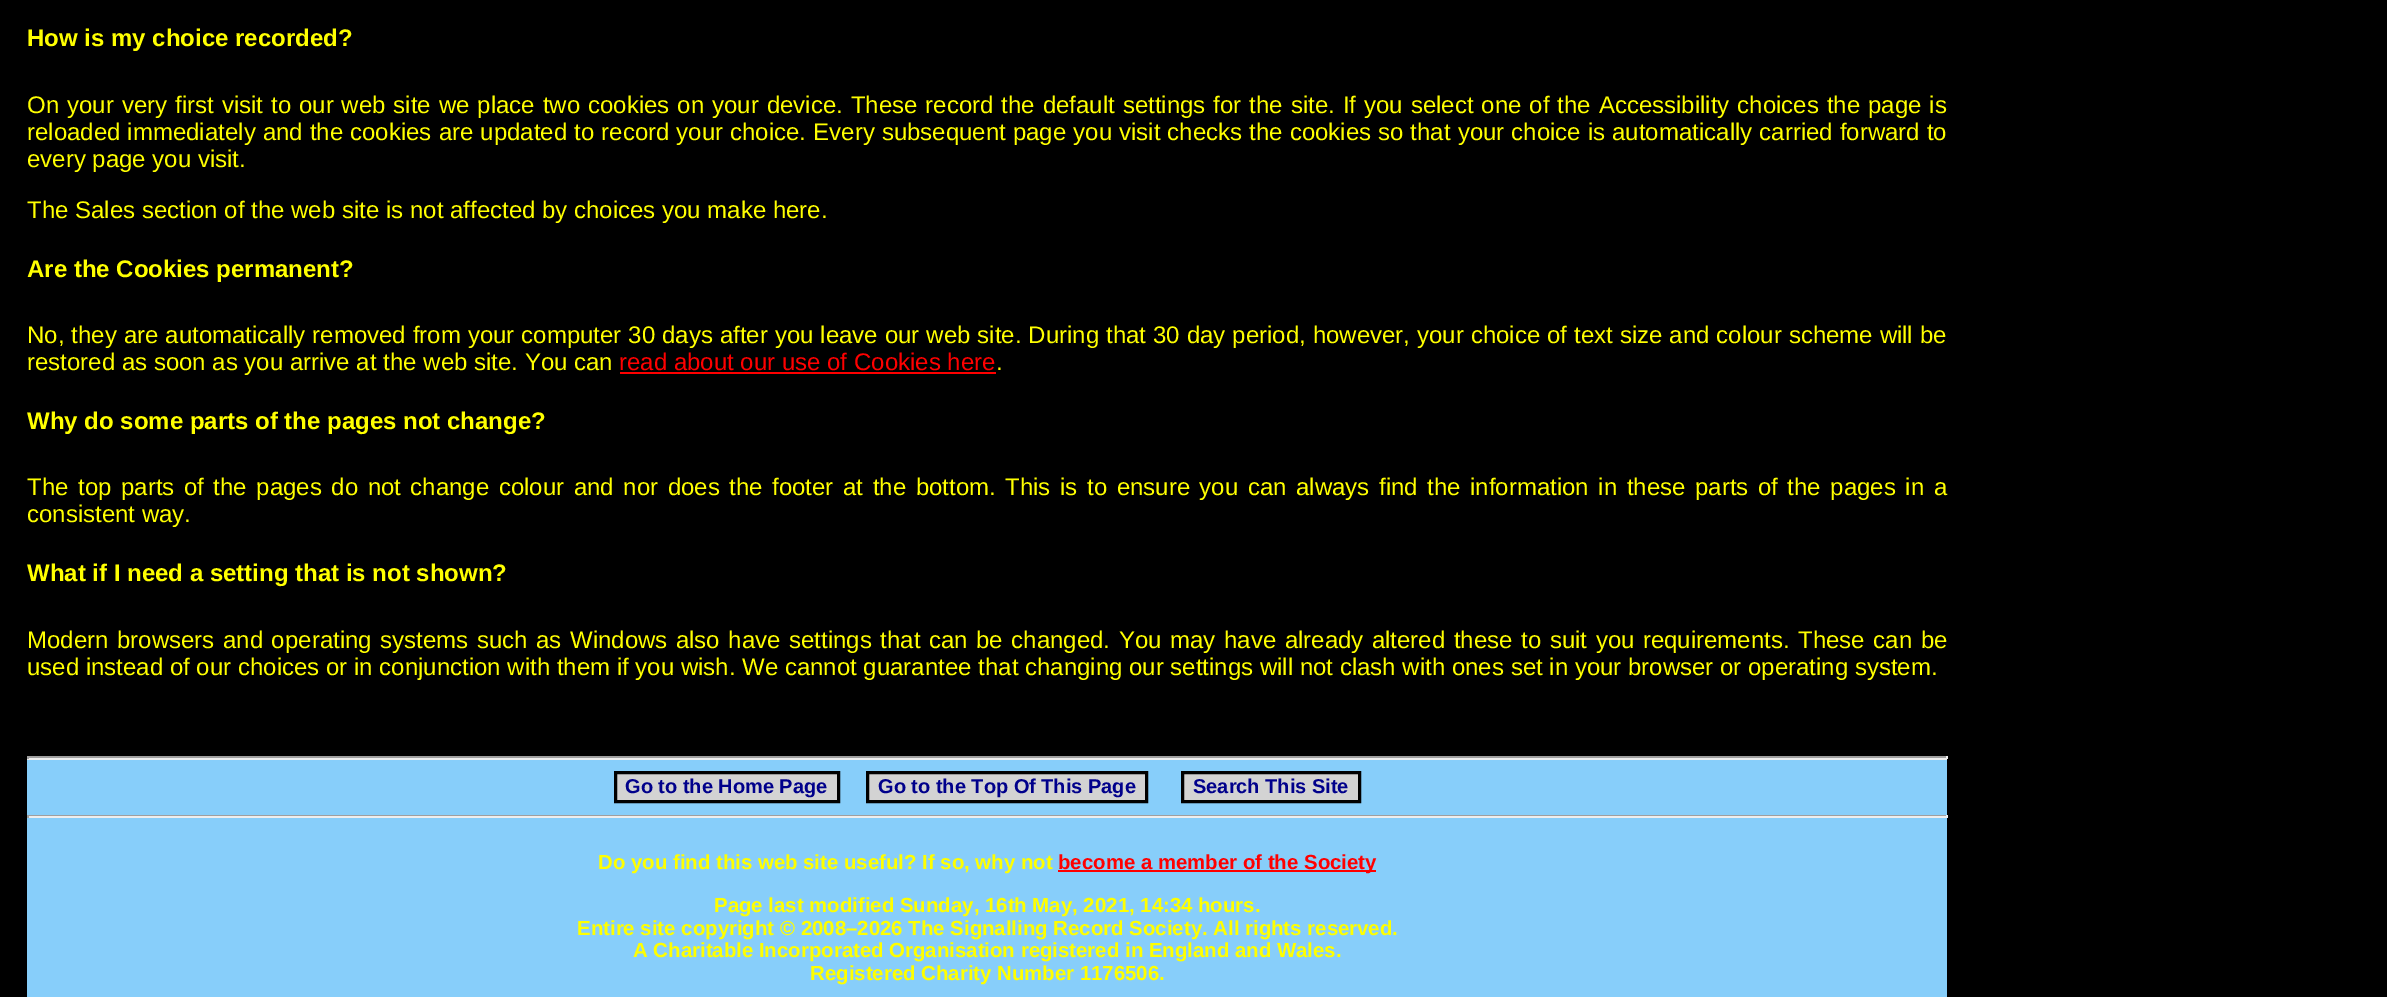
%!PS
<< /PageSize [2387 997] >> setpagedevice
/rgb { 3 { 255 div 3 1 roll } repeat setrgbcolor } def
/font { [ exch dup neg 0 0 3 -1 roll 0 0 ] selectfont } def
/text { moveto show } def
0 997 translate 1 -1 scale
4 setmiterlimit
0 0 0 rgb
0 0 2387 997 rectfill
255 0 0 rgb
620 372 376 2 rectfill
135 206 250 rgb
27 760 1920 237 rectfill
159 159 159 rgb
27 756 1920 2 rectfill
238 238 238 rgb
1946 756 2 3 rectfill
27 758 1920 2 rectfill
159 159 159 rgb
27 756 2 3 rectfill
211 211 211 rgb
615.5 772.5 moveto 223 0 rlineto 0 29 rlineto -223 0 rlineto closepath gsave fill grestore
0 0 0 rgb
3 setlinewidth
stroke
211 211 211 rgb
867.5 772.5 moveto 279 0 rlineto 0 29 rlineto -279 0 rlineto closepath gsave fill grestore
0 0 0 rgb
stroke
211 211 211 rgb
1182.5 772.5 moveto 177 0 rlineto 0 29 rlineto -177 0 rlineto closepath gsave fill grestore
0 0 0 rgb
stroke
159 159 159 rgb
27 815 1920 1 rectfill
238 238 238 rgb
1946 815 2 3 rectfill
27 816 1920 2 rectfill
159 159 159 rgb
27 815 2 3 rectfill
255 0 0 rgb
1058 870 318 2 rectfill
/LiberationSans-Bold 24 font
255 255 0 rgb
(How is my choice recorded?) 27 46 text
/LiberationSans-Regular 24 font
27 113 moveto 1.3 0 32 (On your very first visit to our web site we place two cookies on your device. These record the default settings for the site. If you select one of the Accessibility choices the page is) widthshow
27 140 moveto 0.4 0 32 (reloaded immediately and the cookies are updated to record your choice. Every subsequent page you visit checks the cookies so that your choice is automatically carried forward to) widthshow
(every page you visit.) 27 167 text
(The Sales section of the web site is not affected by choices you make here.) 27 218 text
/LiberationSans-Bold 24 font
(Are the Cookies permanent?) 27 277 text
/LiberationSans-Regular 24 font
27 343 moveto 0.3 0 32 (No, they are automatically removed from your computer 30 days after you leave our web site. During that 30 day period, however, your choice of text size and colour scheme will be) widthshow
(restored as soon as you arrive at the web site. You can) 27 370 text
255 0 0 rgb
(read about our use of Cookies here) 619 370 text
255 255 0 rgb
(.) 996 370 text
/LiberationSans-Bold 24 font
(Why do some parts of the pages not change?) 27 429 text
/LiberationSans-Regular 24 font
27 495 moveto 2.9 0 32 (The top parts of the pages do not change colour and nor does the footer at the bottom. This is to ensure you can always find the information in these parts of the pages in a) widthshow
(consistent way.) 27 522 text
/LiberationSans-Bold 24 font
(What if I need a setting that is not shown?) 27 581 text
/LiberationSans-Regular 24 font
27 648 moveto 1.9 0 32 (Modern browsers and operating systems such as Windows also have settings that can be changed. You may have already altered these to suit you requirements. These can be) widthshow
(used instead of our choices or in conjunction with them if you wish. We cannot guarantee that changing our settings will not clash with ones set in your browser or operating system.) 27 675 text
/LiberationSans-Bold 20 font
0 0 139 rgb
(Go to the Home Page) 625 793 text
(Go to the Top Of This Page) 878 793 text
(Search This Site) 1193 793 text
/LiberationSans-Bold 20.4 font
255 255 0 rgb
(Do you find this web site useful? If so, why not) 598 869 text
255 0 0 rgb
(become a member of the Society) 1058 869 text
255 255 0 rgb
(Page last modified Sunday, 16th May, 2021, 14:34 hours.) 714 912 text
(Entire site copyright © 2008–2026 The Signalling Record Society. All rights reserved.) 577 935 text
(A Charitable Incorporated Organisation registered in England and Wales.) 633 957 text
(Registered Charity Number 1176506.) 810 980 text
showpage
